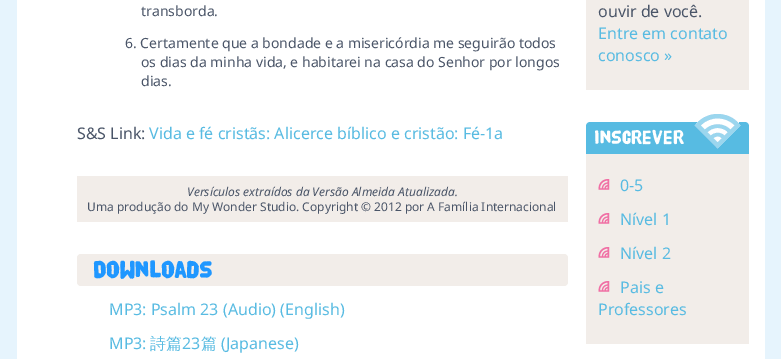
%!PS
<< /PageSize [781 359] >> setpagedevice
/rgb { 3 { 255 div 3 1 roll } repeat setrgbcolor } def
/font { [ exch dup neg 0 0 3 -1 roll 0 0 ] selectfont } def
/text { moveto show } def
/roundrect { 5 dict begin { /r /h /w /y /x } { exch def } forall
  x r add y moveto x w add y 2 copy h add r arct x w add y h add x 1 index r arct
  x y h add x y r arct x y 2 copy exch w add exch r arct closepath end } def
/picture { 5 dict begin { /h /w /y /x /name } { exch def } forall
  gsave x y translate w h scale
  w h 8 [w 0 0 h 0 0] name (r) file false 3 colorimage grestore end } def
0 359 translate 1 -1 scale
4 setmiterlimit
230 244 253 rgb
0 0 781 359 rectfill
255 255 255 rgb
17 0 748 359 rectfill
242 237 233 rgb
77 176 491 46 rectfill
77 254 491 32 4 roundrect fill
586 0 163 90 rectfill
87 187 226 rgb
590 122 moveto 155 0 rlineto 2 0 4 2 4 4 rcurveto 0 28 rlineto -163 0 rlineto 0 -28 rlineto 0 -2 2 -4 4 -4 rcurveto closepath fill
(img_01.rgb) 694 114 47 35 picture
242 237 233 rgb
586 154 163 190 rectfill
(img_02.rgb) 598 179 12 11 picture
(img_02.rgb) 598 213 12 11 picture
(img_02.rgb) 598 247 12 11 picture
(img_02.rgb) 598 281 12 11 picture
/NotoSans-Regular 14 font
74 85 104 rgb
(transborda.) 141 16 text
(6. Certamente que a bondade e a misericórdia me seguirão todos) 125 48 text
(os dias da minha vida, e habitarei na casa do Senhor por longos) 141 67 text
(dias.) 141 86 text
/NotoSans-Regular 16 font
(S&S Link:) 77 139 text
88 187 226 rgb
(Vida e fé cristãs: Alicerce bíblico e cristão: Fé-1a) 149 139 text
/NotoSans-Italic 12 font
74 85 104 rgb
(Versículos extraídos da Versão Almeida Atualizada.) 187 196 text
/NotoSans-Regular 12 font
(Uma produção do My Wonder Studio. Copyright © 2012 por A Família Internacional) 87 211 text
/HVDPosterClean-Bold 24 font
31 151 255 rgb
(Downloads) 93 278 text
/NotoSans-Regular 16 font
88 187 226 rgb
(MP3: Psalm 23 \(Audio\) \(English\)) 109 315 text
(MP3:) 109 349 text
/WenQuanYiZenHei-Medium 16 font
(詩篇) 150 349 text
/NotoSans-Regular 16 font
(23) 182 349 text
/WenQuanYiZenHei-Medium 16 font
(篇) 201 349 text
/NotoSans-Regular 16 font
(\(Japanese\)) 221 349 text
74 85 104 rgb
(ouvir de você.) 598 17 text
88 187 226 rgb
(Entre em contato) 598 39 text
(conosco ») 598 61 text
/HVDPosterClean-Regular 20 font
255 255 255 rgb
(Inscrever) 594 144 text
/NotoSans-Regular 16 font
88 187 226 rgb
(0-5) 620 191 text
(Nível 1) 620 225 text
(Nível 2) 620 259 text
(Pais e) 620 293 text
(Professores) 598 315 text
showpage
